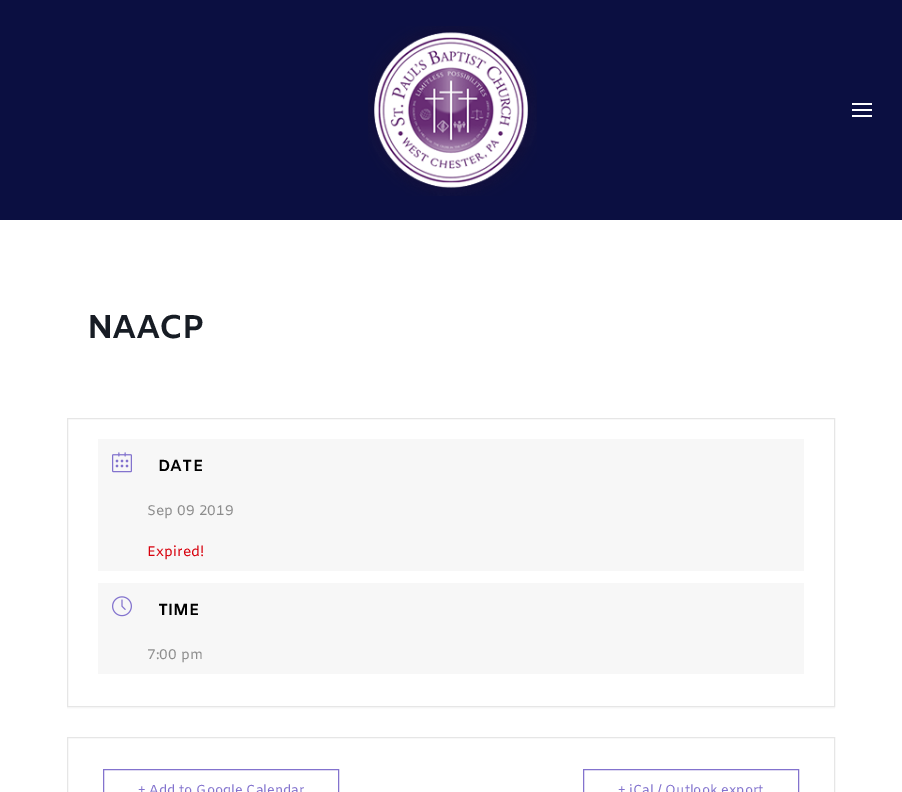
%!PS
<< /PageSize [902 792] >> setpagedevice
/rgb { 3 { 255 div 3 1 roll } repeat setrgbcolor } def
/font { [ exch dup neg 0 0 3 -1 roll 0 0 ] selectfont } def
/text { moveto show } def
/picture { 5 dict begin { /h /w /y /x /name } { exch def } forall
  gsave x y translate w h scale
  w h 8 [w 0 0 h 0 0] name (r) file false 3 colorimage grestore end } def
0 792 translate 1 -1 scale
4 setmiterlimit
255 255 255 rgb
0 0 902 792 rectfill
11 15 65 rgb
0 0 902 220 rectfill
(img_01.rgb) 368 26 169 170 picture
255 255 255 rgb
852 103 20 2 rectfill
852 109 20 2 rectfill
852 115 20 2 rectfill
251 251 251 rgb
67 707 768 2 rectfill
230 230 230 rgb
67.5 418.5 767 288 rectstroke
247 247 247 rgb
98 439 706 132 rectfill
(img_02.rgb) 112 452 20 21 picture
98 583 706 91 rectfill
(img_03.rgb) 112 596 20 21 picture
230 230 230 rgb
67.5 737.5 767 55 rectstroke
131 115 206 rgb
103.5 769.5 235 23 rectstroke
583.5 769.5 215 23 rectstroke
/Amiko-Bold 33 font
23 28 36 rgb
87 338 moveto -1 0 (NAACP) ashow
/Amiko-Bold 16 font
0 0 0 rgb
(DATE) 158 471 text
/Amiko-Regular 14 font
141 141 141 rgb
(Sep 09 2019) 147 515 text
216 0 12 rgb
(Expired!) 147 556 text
/Amiko-Bold 16 font
0 0 0 rgb
(TIME) 158 615 text
/Amiko-Regular 14 font
141 141 141 rgb
(7:00 pm) 147 659 text
/Amiko-Regular 13 font
131 115 206 rgb
(+ Add to Google Calendar) 138 794 text
(+ iCal / Outlook export) 618 794 text
showpage
